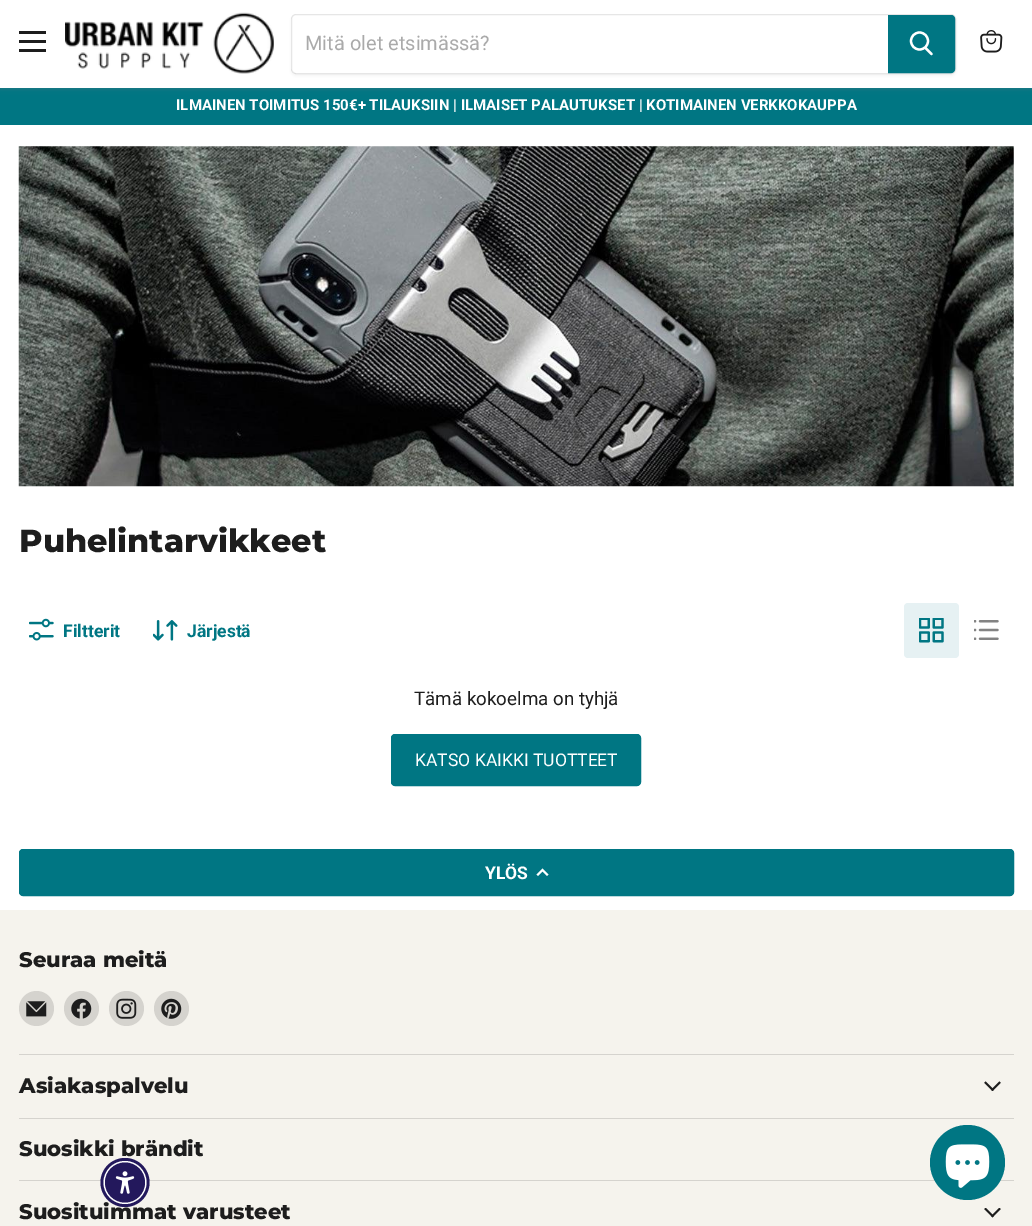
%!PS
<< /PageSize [1032 1226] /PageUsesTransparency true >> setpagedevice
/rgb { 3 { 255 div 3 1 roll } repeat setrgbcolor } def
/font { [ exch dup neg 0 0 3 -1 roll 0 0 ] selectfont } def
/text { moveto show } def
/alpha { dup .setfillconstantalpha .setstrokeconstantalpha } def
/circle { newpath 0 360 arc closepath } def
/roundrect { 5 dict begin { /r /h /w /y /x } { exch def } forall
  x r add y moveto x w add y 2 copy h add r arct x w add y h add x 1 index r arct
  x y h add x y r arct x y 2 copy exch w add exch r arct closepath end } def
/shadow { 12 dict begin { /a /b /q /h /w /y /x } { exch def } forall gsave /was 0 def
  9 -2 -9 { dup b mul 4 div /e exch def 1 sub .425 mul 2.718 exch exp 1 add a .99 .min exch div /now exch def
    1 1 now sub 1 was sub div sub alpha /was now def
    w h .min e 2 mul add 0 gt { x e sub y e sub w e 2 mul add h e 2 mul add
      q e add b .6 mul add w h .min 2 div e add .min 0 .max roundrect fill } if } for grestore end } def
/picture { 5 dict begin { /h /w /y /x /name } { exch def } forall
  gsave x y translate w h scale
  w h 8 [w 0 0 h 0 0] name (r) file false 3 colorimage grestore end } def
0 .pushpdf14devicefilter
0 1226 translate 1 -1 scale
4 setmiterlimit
255 255 255 rgb
0 0 1032 1226 rectfill
0 118 131 rgb
0 88 1032 37 rectfill
128 128 128 rgb
0 1 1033 88 0 2.5 0.25 shadow
255 255 255 rgb
0 0 1032 88 rectfill
29 29 29 rgb
19 31 27 3 rectfill
19 40 27 3 rectfill
19 49 27 3 rectfill
(img_01.rgb) 65 12 209 62 picture
gsave
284 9 moveto 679 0 rlineto 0 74 rlineto -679 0 rlineto closepath 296 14 moveto 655 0 rlineto 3 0 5 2 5 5 rcurveto 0 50 rlineto 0 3 -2 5 -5 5 rcurveto -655 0 rlineto -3 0 -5 -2 -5 -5 rcurveto 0 -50 rlineto 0 -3 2 -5 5 -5 rcurveto closepath eoclip newpath
128 128 128 rgb
291 16 665 60 5 2 0.11 shadow
grestore
0.2 alpha
128 128 128 rgb
291.5 14.5 664 59 4.5 roundrect stroke
1 alpha
0 118 131 rgb
888.5 15.5 moveto 62.5 0 rlineto 2 0 3.5 1.5 3.5 3.5 rcurveto 0 50 rlineto 0 2 -1.5 3.5 -3.5 3.5 rcurveto -62.5 0 rlineto closepath gsave fill grestore
stroke
255 255 255 rgb
2.2 setlinewidth
1 setlinecap
931.5 54 moveto -6 -6 rlineto stroke
0 setlinecap
919.5 41 8.5 circle stroke
(img_02.rgb) 980 30 23 23 picture
1012.5 26.5 12 circle gsave fill grestore
3 setlinewidth
stroke
(img_03.rgb) 18 146 996 341 picture
(img_04.rgb) 29 618 25 23 picture
(img_05.rgb) 153 620 25 21 picture
230 241 243 rgb
904 603 55 55 4 roundrect fill
(img_06.rgb) 919 618 25 25 picture
(img_07.rgb) 974 620 25 20 picture
0 118 131 rgb
391.5 734.5 249 51 3.5 roundrect gsave fill grestore
1 setlinewidth
stroke
19.5 849.5 994 46 3.5 roundrect gsave fill grestore
stroke
255 255 255 rgb
2 setlinewidth
2 setlinecap
542.5 870 moveto -4.5 4.5 rlineto 542.5 870 moveto 4.5 4.5 rlineto stroke
245 243 237 rgb
0 910 1032 316 rectfill
213 211 206 rgb
19 1054 995 1 rectfill
36.5 1008.5 17.5 circle fill
(img_08.rgb) 26 1001 21 16 picture
81.5 1008.5 17.5 circle fill
(img_09.rgb) 71 998 21 21 picture
126.5 1008.5 17.5 circle fill
(img_10.rgb) 116 998 21 21 picture
171.5 1008.5 17.5 circle fill
(img_11.rgb) 161 998 21 21 picture
19 1118 995 1 rectfill
(img_12.rgb) 984 1081 17 10 picture
19 1180 995 1 rectfill
(img_13.rgb) 1000 1144 1 2 picture
(img_14.rgb) 984 1208 17 10 picture
0 118 131 rgb
967.5 1162.5 37.5 circle fill
(img_15.rgb) 945 1144 45 44 picture
/Roboto-Regular 20 font
170 170 170 rgb
(Mitä olet etsimässä?) 305 50 text
/Roboto-Bold 15 font
255 255 255 rgb
(ILMAINEN TOIMITUS 150€+ TILAUKSIIN | ILMAISET PALAUTUKSET | KOTIMAINEN VERKKOKAUPPA) 176 110 text
/Montserrat-ExtraBold 31.9 font
29 29 29 rgb
(Puhelintarvikkeet) 19 552 text
/Roboto-Bold 17.5 font
0 118 131 rgb
(Filtterit) 63 637 text
(Järjestä) 187 637 text
/Roboto-Regular 18.75 font
29 29 29 rgb
(Tämä kokoelma on tyhjä) 414 705 text
/Roboto-Regular 17.5 font
255 255 255 rgb
(KATSO KAIKKI TUOTTEET) 415 766 text
/Roboto-Bold 17.5 font
(YLÖS) 485 879 text
/Montserrat-ExtraBold 21.1 font
29 29 29 rgb
(Seuraa meitä) 19 967 text
(Asiakaspalvelu) 19 1093 text
(Suosikki brändit) 19 1156 text
(Suosituimmat varusteet) 19 1219 text
35 24 92 rgb
125 1182.5 24.5 circle fill
255 255 255 rgb
125 1182.5 21.5 circle fill
35 24 92 rgb
125 1182.5 20 circle fill
(img_16.rgb) 115 1171 20 23 picture
.poppdf14devicefilter showpage
